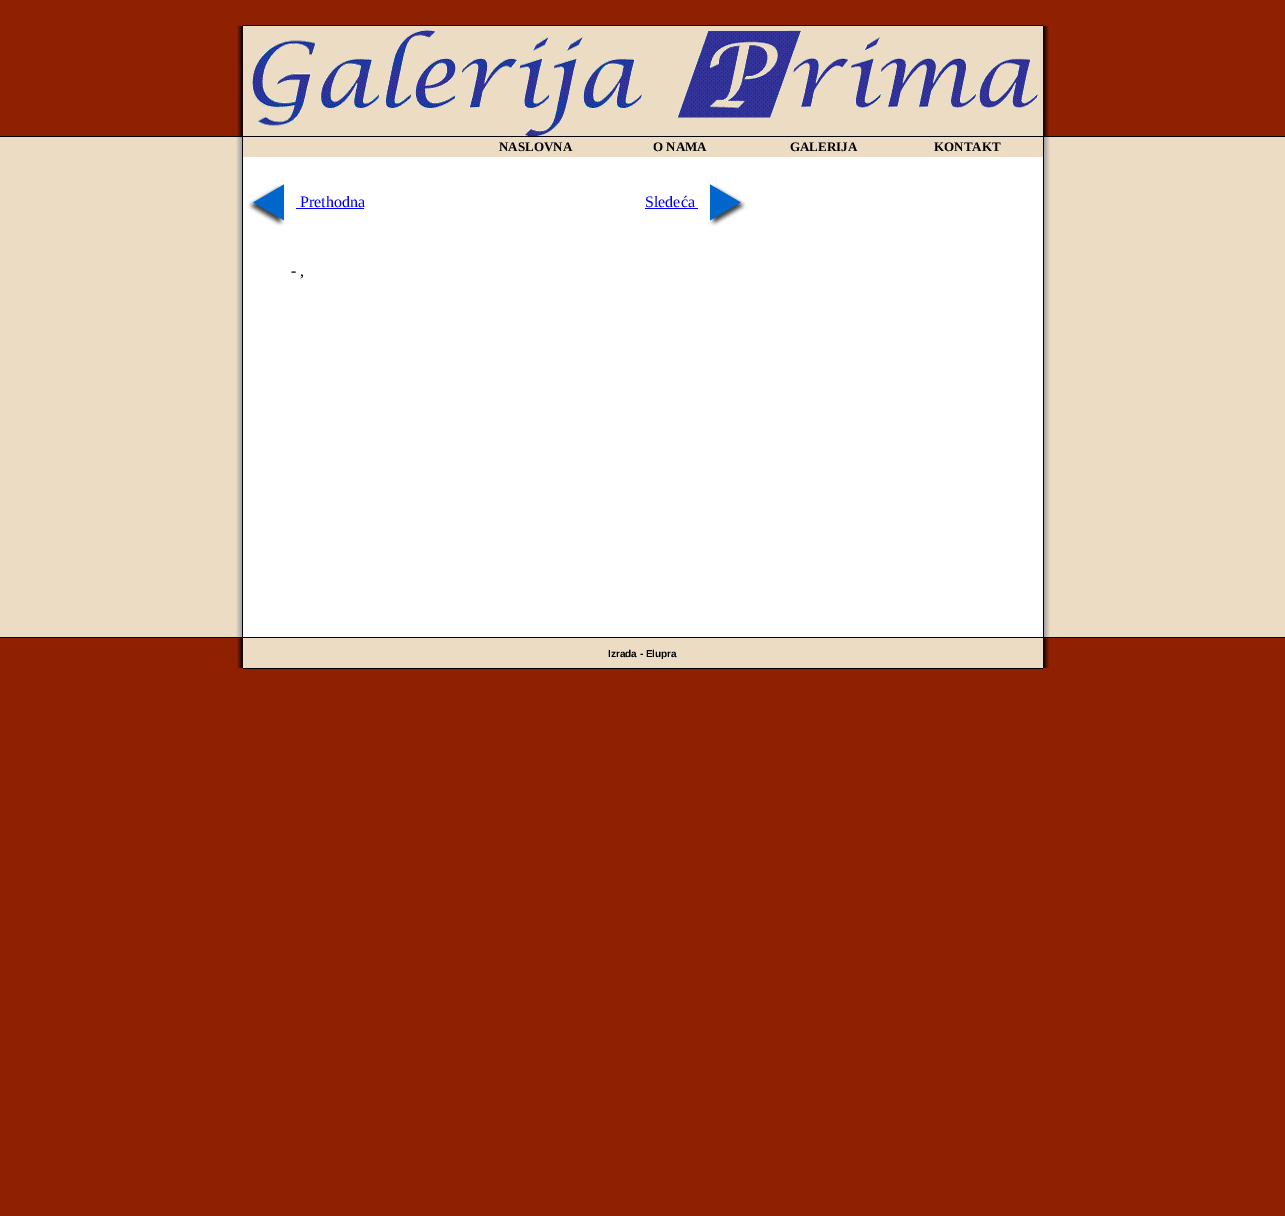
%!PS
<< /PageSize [1285 1216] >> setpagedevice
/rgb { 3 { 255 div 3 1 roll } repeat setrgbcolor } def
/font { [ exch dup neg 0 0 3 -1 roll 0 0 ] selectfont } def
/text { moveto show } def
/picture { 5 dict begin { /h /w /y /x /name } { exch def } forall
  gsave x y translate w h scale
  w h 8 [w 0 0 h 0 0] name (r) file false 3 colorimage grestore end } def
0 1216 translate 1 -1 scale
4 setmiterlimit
144 32 2 rgb
0 0 1285 1216 rectfill
0 0 0 rgb
243 25 800 1 rectfill
(img_01.rgb) 237 26 6 110 picture
235 220 195 rgb
243 26 800 110 rectfill
(img_02.rgb) 252 30 786 106 picture
(img_03.rgb) 1043 26 6 110 picture
0 0 0 rgb
0 136 1285 1 rectfill
235 220 195 rgb
0 137 236 500 rectfill
(img_04.rgb) 236 137 7 500 picture
255 255 255 rgb
243 157 800 480 rectfill
235 220 195 rgb
243 137 800 20 rectfill
(img_05.rgb) 246 178 40 48 picture
0 0 238 rgb
296 208 68 1 rectfill
645 208 53 1 rectfill
(img_06.rgb) 708 178 40 48 picture
(img_07.rgb) 1043 137 7 500 picture
235 220 195 rgb
1050 137 235 500 rectfill
0 0 0 rgb
0 637 1285 1 rectfill
(img_08.rgb) 237 638 6 30 picture
235 220 195 rgb
243 638 800 30 rectfill
(img_09.rgb) 1043 638 6 30 picture
0 0 0 rgb
243 668 800 1 rectfill
/LiberationSerif-Bold 13 font
(NASLOVNA) 499 151 text
(O NAMA) 653 151 text
(GALERIJA) 790 151 text
(KONTAKT) 934 151 text
/LiberationSerif-Regular 16 font
0 0 238 rgb
(Prethodna) 300 207 text
(Sledeća) 645 207 text
0 0 0 rgb
(- ,) 291 276 text
/LiberationSans-Bold 10 font
(Izrada - Elupra) 608 657 text
showpage
